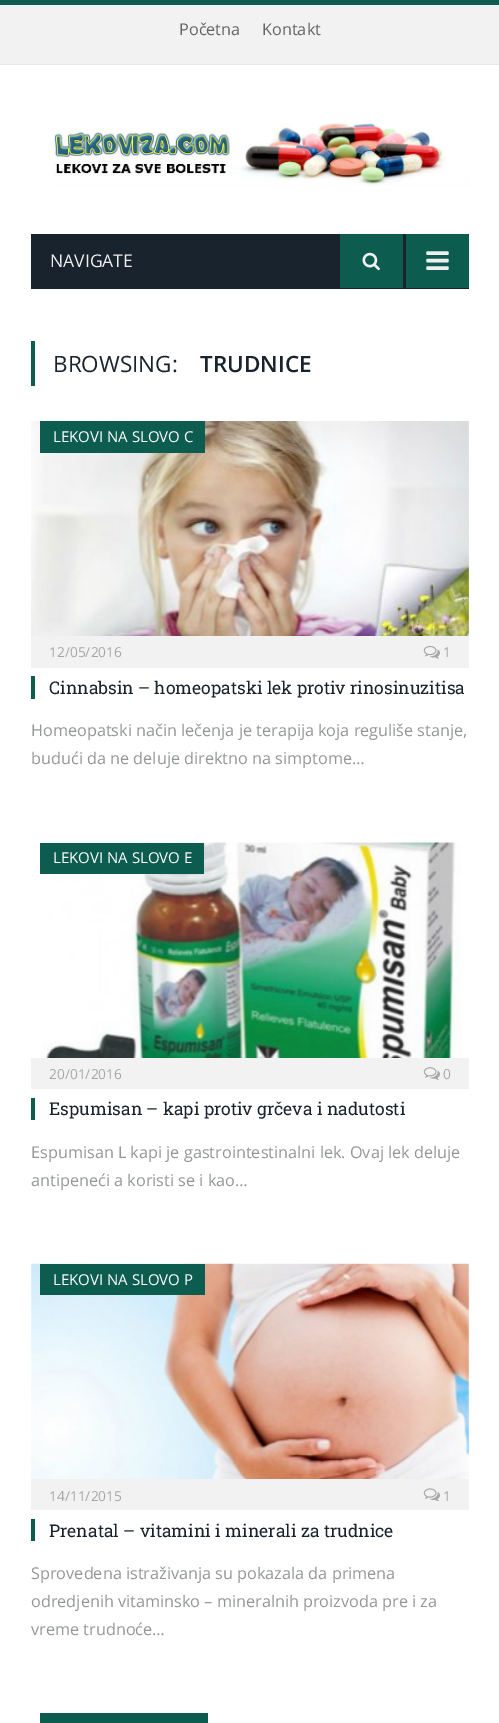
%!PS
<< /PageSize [499 1723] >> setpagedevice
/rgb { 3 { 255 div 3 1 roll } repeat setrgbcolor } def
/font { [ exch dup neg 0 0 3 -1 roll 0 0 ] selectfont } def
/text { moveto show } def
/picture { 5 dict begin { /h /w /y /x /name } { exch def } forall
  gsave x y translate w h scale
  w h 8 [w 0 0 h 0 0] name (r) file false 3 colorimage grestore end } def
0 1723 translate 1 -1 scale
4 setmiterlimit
255 255 255 rgb
0 0 499 1723 rectfill
242 242 242 rgb
0 5 499 59 rectfill
12 92 80 rgb
0 0 499 5 rectfill
231 231 231 rgb
0 64 499 1 rectfill
(img_01.rgb) 53 122 415 64 picture
25 35 45 rgb
31 234 438 55 rectfill
12 92 80 rgb
340 234 63 54 rectfill
(img_02.rgb) 362 252 18 19 picture
406 234 63 54 rectfill
(img_03.rgb) 426 251 23 19 picture
31 341 4 45 rectfill
(img_04.rgb) 31 421 438 215 picture
40 421 165 32 rectfill
242 242 242 rgb
31 636 438 32 rectfill
(img_05.rgb) 423 645 17 14 picture
12 92 80 rgb
31 676 4 23 rectfill
(img_06.rgb) 43 842 420 216 picture
40 843 164 31 rectfill
242 242 242 rgb
31 1058 438 31 rectfill
(img_07.rgb) 423 1067 17 13 picture
12 92 80 rgb
31 1098 4 22 rectfill
(img_08.rgb) 31 1263 438 216 picture
40 1264 165 31 rectfill
242 242 242 rgb
31 1479 438 31 rectfill
(img_09.rgb) 423 1488 17 14 picture
12 92 80 rgb
31 1519 4 22 rectfill
40 1713 168 10 rectfill
/OpenSans-Regular 16.25 font
101 101 101 rgb
(Početna) 179 35 text
(Kontakt) 262 35 text
/OpenSans-Regular 17.5 font
239 239 239 rgb
(NAVIGATE) 50 267 text
/OpenSans-Regular 22.5 font
25 35 45 rgb
(BROWSING:) 53 372 text
/OpenSans-SemiBold 22.5 font
(TRUDNICE) 200 372 text
/OpenSans-Regular 15 font
255 255 255 rgb
(LEKOVI NA SLOVO C) 53 442 text
/OpenSans-Regular 13.75 font
166 166 166 rgb
(12/05/2016) 49 657 text
(1) 443 657 text
/RobotoSlab-Regular 17.5 font
25 35 45 rgb
(Cinnabsin – homeopatski lek protiv rinosinuzitisa) 49 694 text
/OpenSans-Regular 16.25 font
148 150 151 rgb
(Homeopatski način lečenja je terapija koja reguliše stanje,) 31 736 text
(budući da ne deluje direktno na simptome…) 31 764 text
/OpenSans-Regular 15 font
255 255 255 rgb
(LEKOVI NA SLOVO E) 53 863 text
/OpenSans-Regular 13.75 font
166 166 166 rgb
(20/01/2016) 49 1079 text
(0) 443 1079 text
/RobotoSlab-Regular 17.5 font
25 35 45 rgb
(Espumisan – kapi protiv grčeva i nadutosti) 49 1115 text
/OpenSans-Regular 16.25 font
148 150 151 rgb
(Espumisan L kapi je gastrointestinalni lek. Ovaj lek deluje) 31 1158 text
(antipeneći a koristi se i kao…) 31 1186 text
/OpenSans-Regular 15 font
255 255 255 rgb
(LEKOVI NA SLOVO P) 53 1285 text
/OpenSans-Regular 13.75 font
166 166 166 rgb
(14/11/2015) 49 1501 text
(1) 443 1501 text
/RobotoSlab-Regular 17.5 font
25 35 45 rgb
(Prenatal – vitamini i minerali za trudnice) 49 1537 text
/OpenSans-Regular 16.25 font
148 150 151 rgb
(Sprovedena istraživanja su pokazala da primena) 31 1579 text
(odredjenih vitaminsko – mineralnih proizvoda pre i za) 31 1607 text
(vreme trudnoće…) 31 1635 text
showpage
